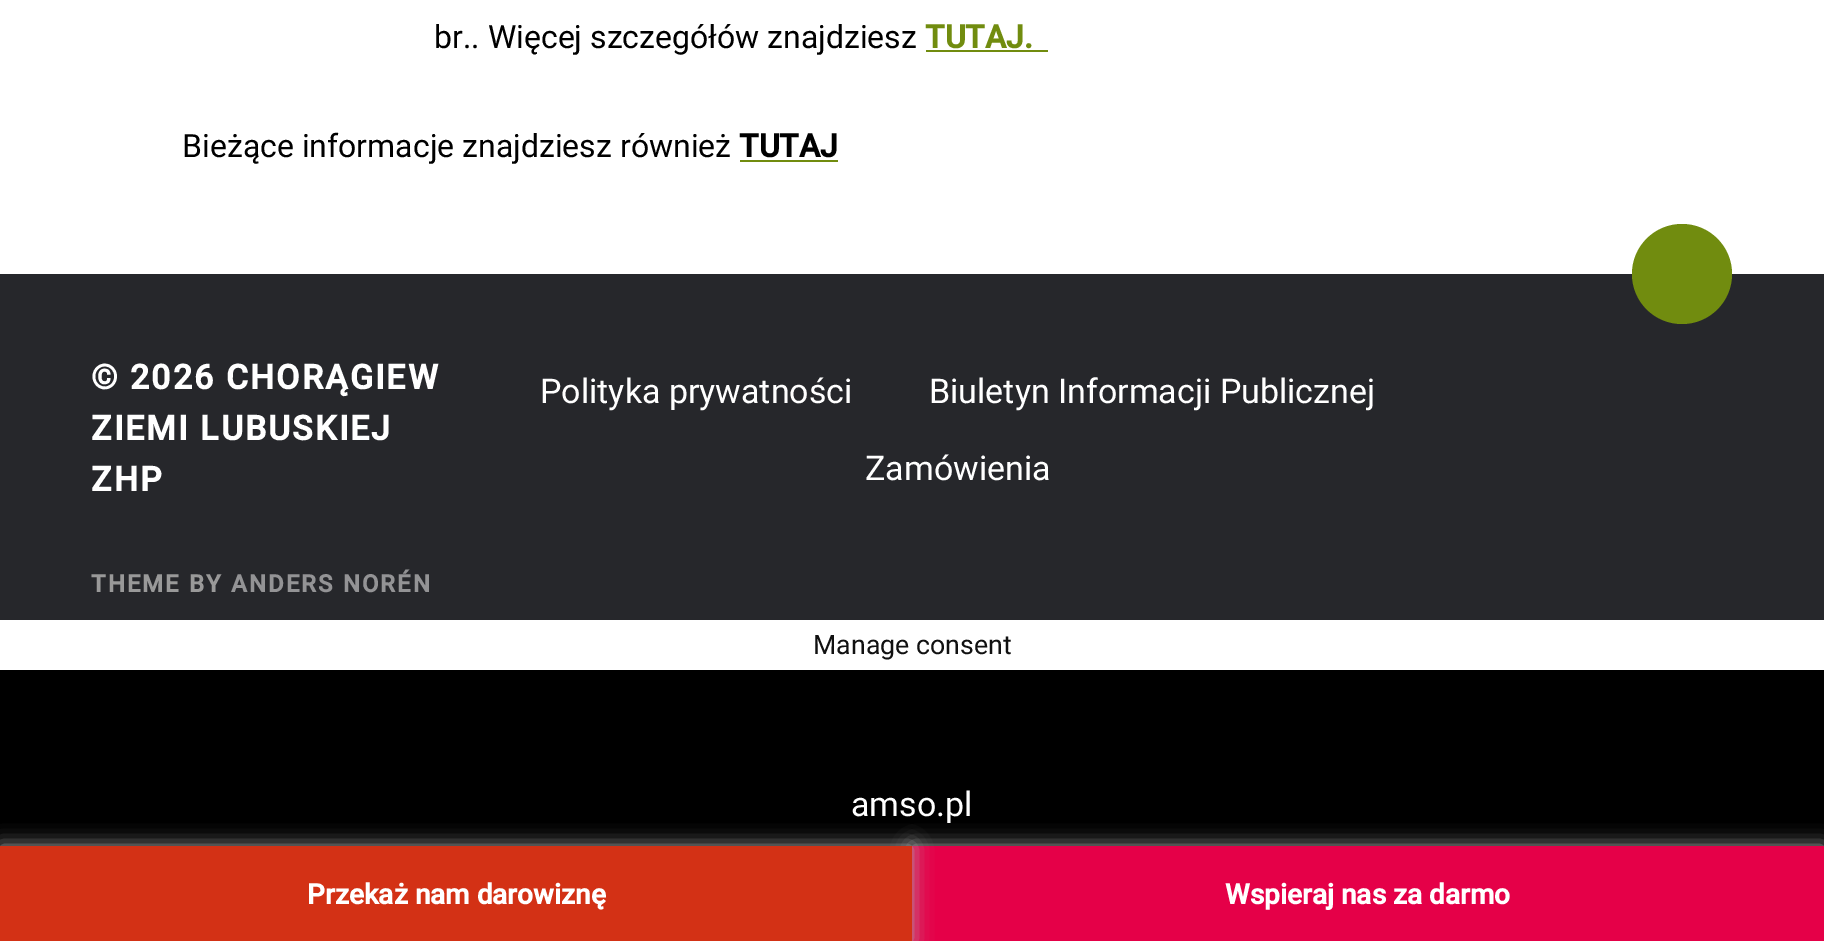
%!PS
<< /PageSize [1824 941] /PageUsesTransparency true >> setpagedevice
/rgb { 3 { 255 div 3 1 roll } repeat setrgbcolor } def
/font { [ exch dup neg 0 0 3 -1 roll 0 0 ] selectfont } def
/text { moveto show } def
/alpha { dup .setfillconstantalpha .setstrokeconstantalpha } def
/circle { newpath 0 360 arc closepath } def
/roundrect { 5 dict begin { /r /h /w /y /x } { exch def } forall
  x r add y moveto x w add y 2 copy h add r arct x w add y h add x 1 index r arct
  x y h add x y r arct x y 2 copy exch w add exch r arct closepath end } def
/shadow { 12 dict begin { /a /b /q /h /w /y /x } { exch def } forall gsave /was 0 def
  9 -2 -9 { dup b mul 4 div /e exch def 1 sub .425 mul 2.718 exch exp 1 add a .99 .min exch div /now exch def
    1 1 now sub 1 was sub div sub alpha /was now def
    w h .min e 2 mul add 0 gt { x e sub y e sub w e 2 mul add h e 2 mul add
      q e add b .6 mul add w h .min 2 div e add .min 0 .max roundrect fill } if } for grestore end } def
0 .pushpdf14devicefilter
0 941 translate 1 -1 scale
4 setmiterlimit
255 255 255 rgb
0 0 1824 941 rectfill
113 140 15 rgb
926 50 122 2 rectfill
740 160 98 2 rectfill
38 39 43 rgb
0 274 1824 346 rectfill
113 140 15 rgb
1682 274 50 circle fill
0 0 0 rgb
0 670 1824 176 rectfill
170 170 170 rgb
912 846 912 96 0 10 1 shadow
229 0 72 rgb
912 846 912 95 rectfill
170 170 170 rgb
0 846 912 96 0 10 1 shadow
211 49 21 rgb
0 846 912 95 rectfill
/Roboto-Regular 32 font
0 0 0 rgb
(br.. Więcej szczegółów znajdziesz) 434 48 text
/Roboto-Bold 32 font
113 140 15 rgb
(TUTAJ.) 925 48 text
/Roboto-Regular 32 font
0 0 0 rgb
(Bieżące informacje znajdziesz również) 182 157 text
/Roboto-Bold 32 font
(TUTAJ) 739 157 text
/Roboto-Bold 34 font
255 255 255 rgb
91 389 moveto 2 0 (© 2026 CHORĄGIEW) ashow
91 440 moveto 2 0 (ZIEMI LUBUSKIEJ) ashow
91 491 moveto 2 0 (ZHP) ashow
/Roboto-Regular 34 font
(Polityka prywatności) 540 403 text
(Biuletyn Informacji Publicznej) 929 403 text
(Zamówienia) 865 480 text
/Roboto-Bold 24 font
153 153 153 rgb
91 592 moveto 2 0 (THEME BY) ashow
147 147 149 rgb
231 592 moveto 2 0 (ANDERS NORÉN) ashow
/Roboto-Regular 26.75 font
17 17 17 rgb
(Manage consent) 813 654 text
/Roboto-Regular 34 font
255 255 255 rgb
(amso.pl) 851 816 text
/Roboto-Bold 28 font
(Przekaż nam darowiznę) 307 904 text
(Wspieraj nas za darmo) 1225 904 text
.poppdf14devicefilter showpage
